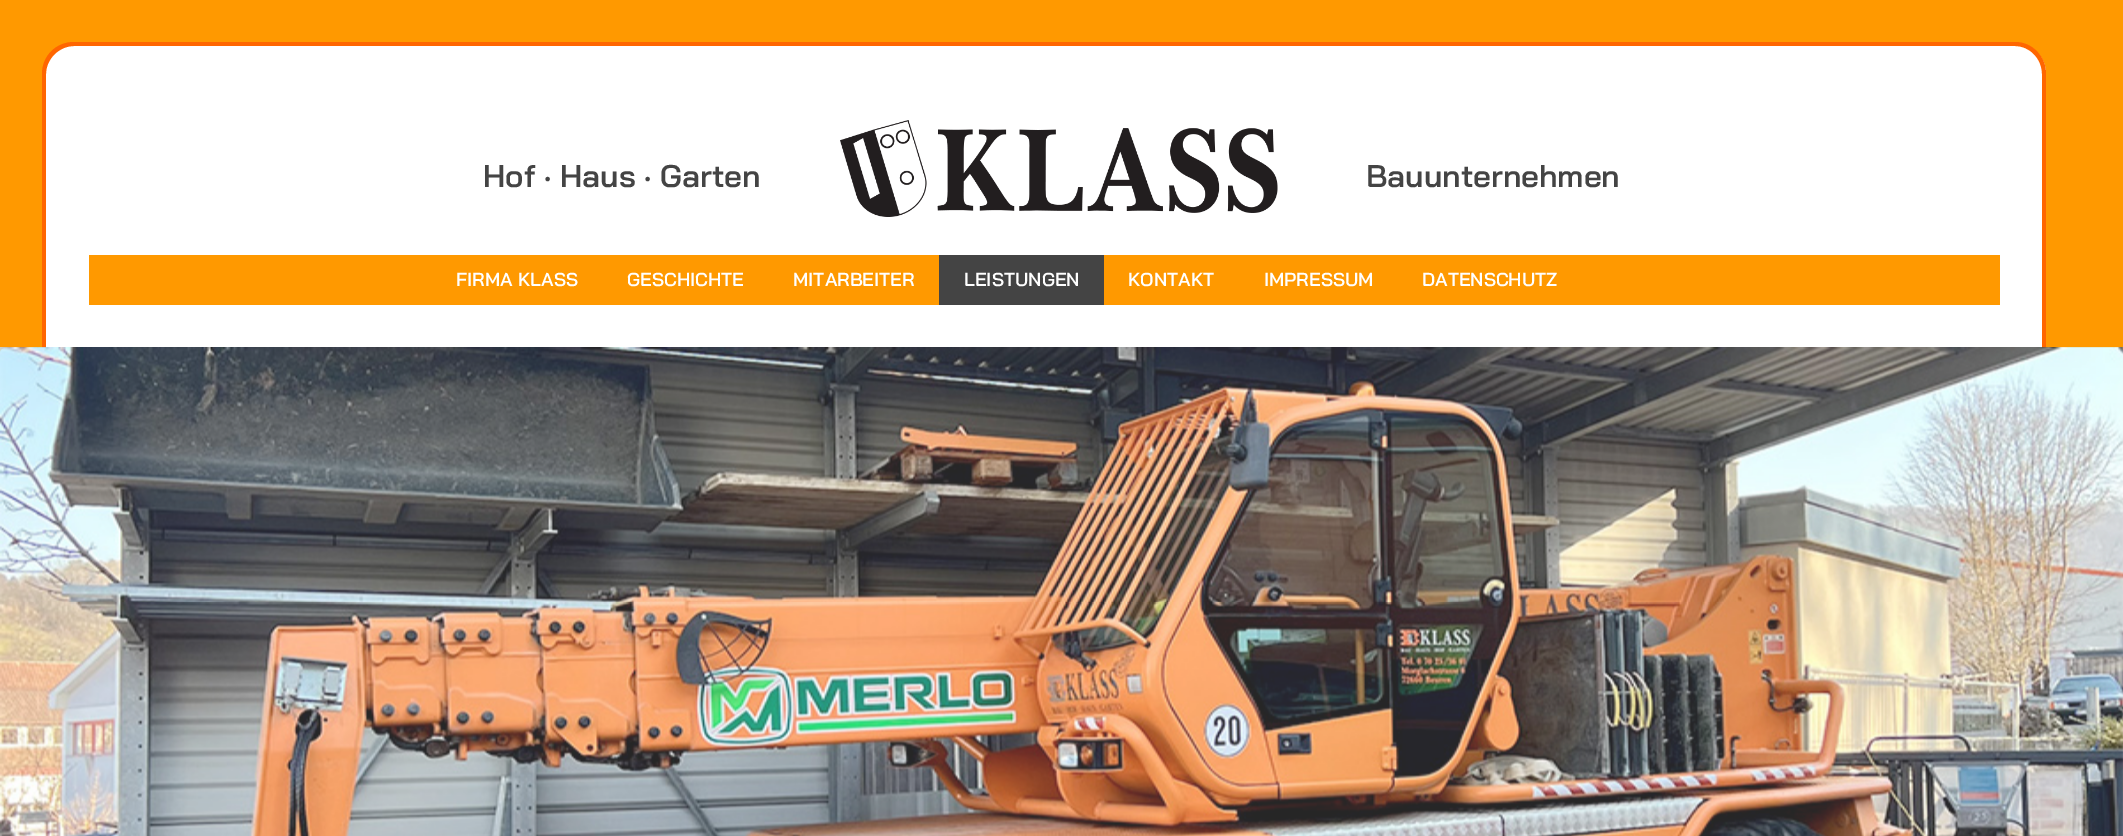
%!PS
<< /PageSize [2123 836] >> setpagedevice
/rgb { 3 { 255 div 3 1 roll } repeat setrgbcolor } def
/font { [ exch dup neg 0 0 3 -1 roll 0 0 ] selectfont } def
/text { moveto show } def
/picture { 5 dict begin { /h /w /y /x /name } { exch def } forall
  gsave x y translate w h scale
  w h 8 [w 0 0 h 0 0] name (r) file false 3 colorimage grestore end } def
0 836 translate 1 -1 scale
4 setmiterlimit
255 255 255 rgb
0 0 2123 836 rectfill
gsave 0 0 moveto 2123 0 rlineto 0 836 rlineto -2123 0 rlineto closepath clip newpath
<< /ShadingType 2 /ColorSpace /DeviceRGB /Coords [289 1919 1835 -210] /Extend [true true] /Function << /FunctionType 3 /Domain [0 1] /Functions [<< /FunctionType 2 /Domain [0 1] /C0 [1 0.4 0] /C1 [1 0.6 0] /N 1 >> << /FunctionType 2 /Domain [0 1] /C0 [1 0.6 0] /C1 [1 0.6 0] /N 1 >>] /Bounds [0.24] /Encode [0 1 0 1] >> >> shfill grestore
74 43 moveto 1941 0 rlineto 17 0 31 14 31 31 rcurveto 0 274 rlineto -2003 0 rlineto 0 -274 rlineto 0 -17 14 -31 31 -31 rcurveto closepath fill
255 102 0 rgb
74 42 moveto 1941 0 rlineto 17 0 31 14 31 32 rcurveto 0 274 rlineto -2004 0 rlineto 0 -274 rlineto 0 -18 14 -32 32 -32 rcurveto closepath 74 46 moveto 1941 0 rlineto 15 0 27 13 27 28 rcurveto 0 274 rlineto -1996 0 rlineto 0 -274 rlineto 0 -15 13 -28 28 -28 rcurveto closepath eofill
(img_01.rgb) 840 120 438 97 picture
255 153 0 rgb
89 255 1911 50 rectfill
68 68 68 rgb
939 255 165 50 rectfill
(img_02.rgb) 0 347 2123 489 picture
/BaiJamjuree-SemiBold 31.25 font
(Hof · Haus · Garten) 483 187 text
(Bauunternehmen) 1366 187 text
/BaiJamjuree-SemiBold 18.75 font
255 255 255 rgb
(FIRMA KLASS) 456 286 text
(GESCHICHTE) 627 286 text
(MITARBEITER) 793 286 text
(LEISTUNGEN) 964 286 text
(KONTAKT) 1128 286 text
(IMPRESSUM) 1264 286 text
(DATENSCHUTZ) 1422 286 text
showpage
